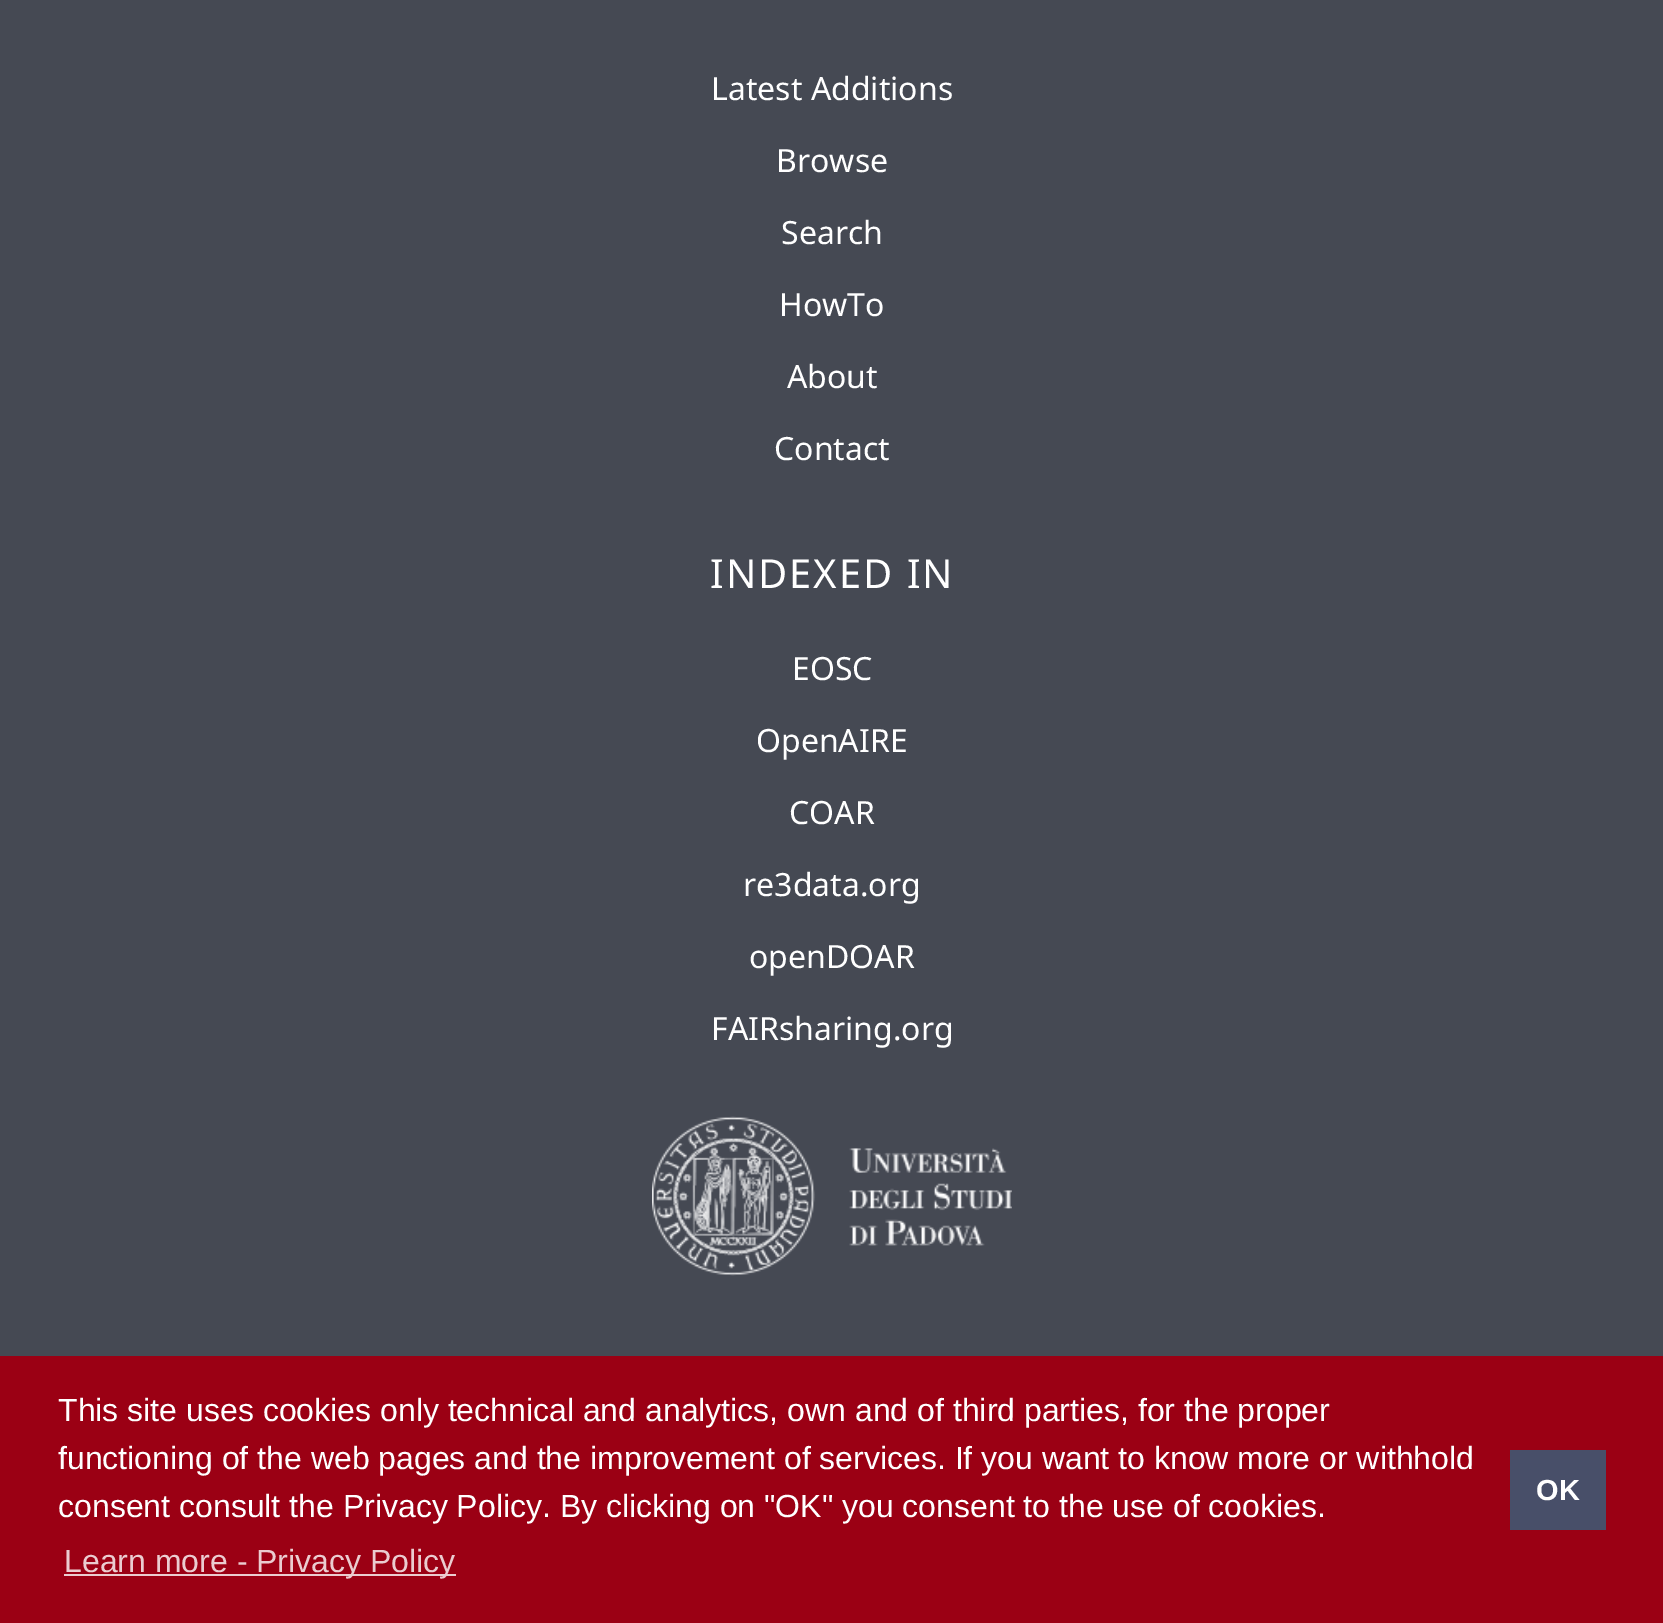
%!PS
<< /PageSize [1663 1623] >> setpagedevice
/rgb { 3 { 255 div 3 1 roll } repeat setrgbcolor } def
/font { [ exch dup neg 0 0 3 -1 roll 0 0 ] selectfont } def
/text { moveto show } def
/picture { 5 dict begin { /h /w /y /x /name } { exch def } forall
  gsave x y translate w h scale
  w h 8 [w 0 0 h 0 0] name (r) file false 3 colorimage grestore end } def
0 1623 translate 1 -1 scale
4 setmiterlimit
69 73 83 rgb
0 0 1663 1623 rectfill
(img_01.rgb) 652 1116 360 160 picture
155 0 20 rgb
0 1356 1663 267 rectfill
235 204 208 rgb
64 1574 392 2 rectfill
72 79 105 rgb
1510 1450 96 80 rectfill
/NotoSans-Regular 32 font
255 255 255 rgb
(Latest Additions) 711 100 text
(Browse) 776 172 text
(Search) 781 244 text
(HowTo) 779 316 text
(About) 787 388 text
(Contact) 774 460 text
/NotoSans-Regular 40 font
710 588 moveto 2 0 (INDEXED IN) ashow
/NotoSans-Regular 32 font
(EOSC) 792 680 text
(OpenAIRE) 756 752 text
(COAR) 789 824 text
(re3data.org) 743 896 text
(openDOAR) 749 968 text
(FAIRsharing.org) 711 1040 text
/LiberationSans-Regular 32 font
(This site uses cookies only technical and analytics, own and of third parties, for the proper) 58 1421 text
(functioning of the web pages and the improvement of services. If you want to know more or withhold) 58 1469 text
(consent consult the Privacy Policy. By clicking on "OK" you consent to the use of cookies.) 58 1517 text
235 204 208 rgb
(Learn more - Privacy Policy) 64 1572 text
/LiberationSans-Bold 29 font
255 255 255 rgb
(OK) 1536 1500 text
showpage
